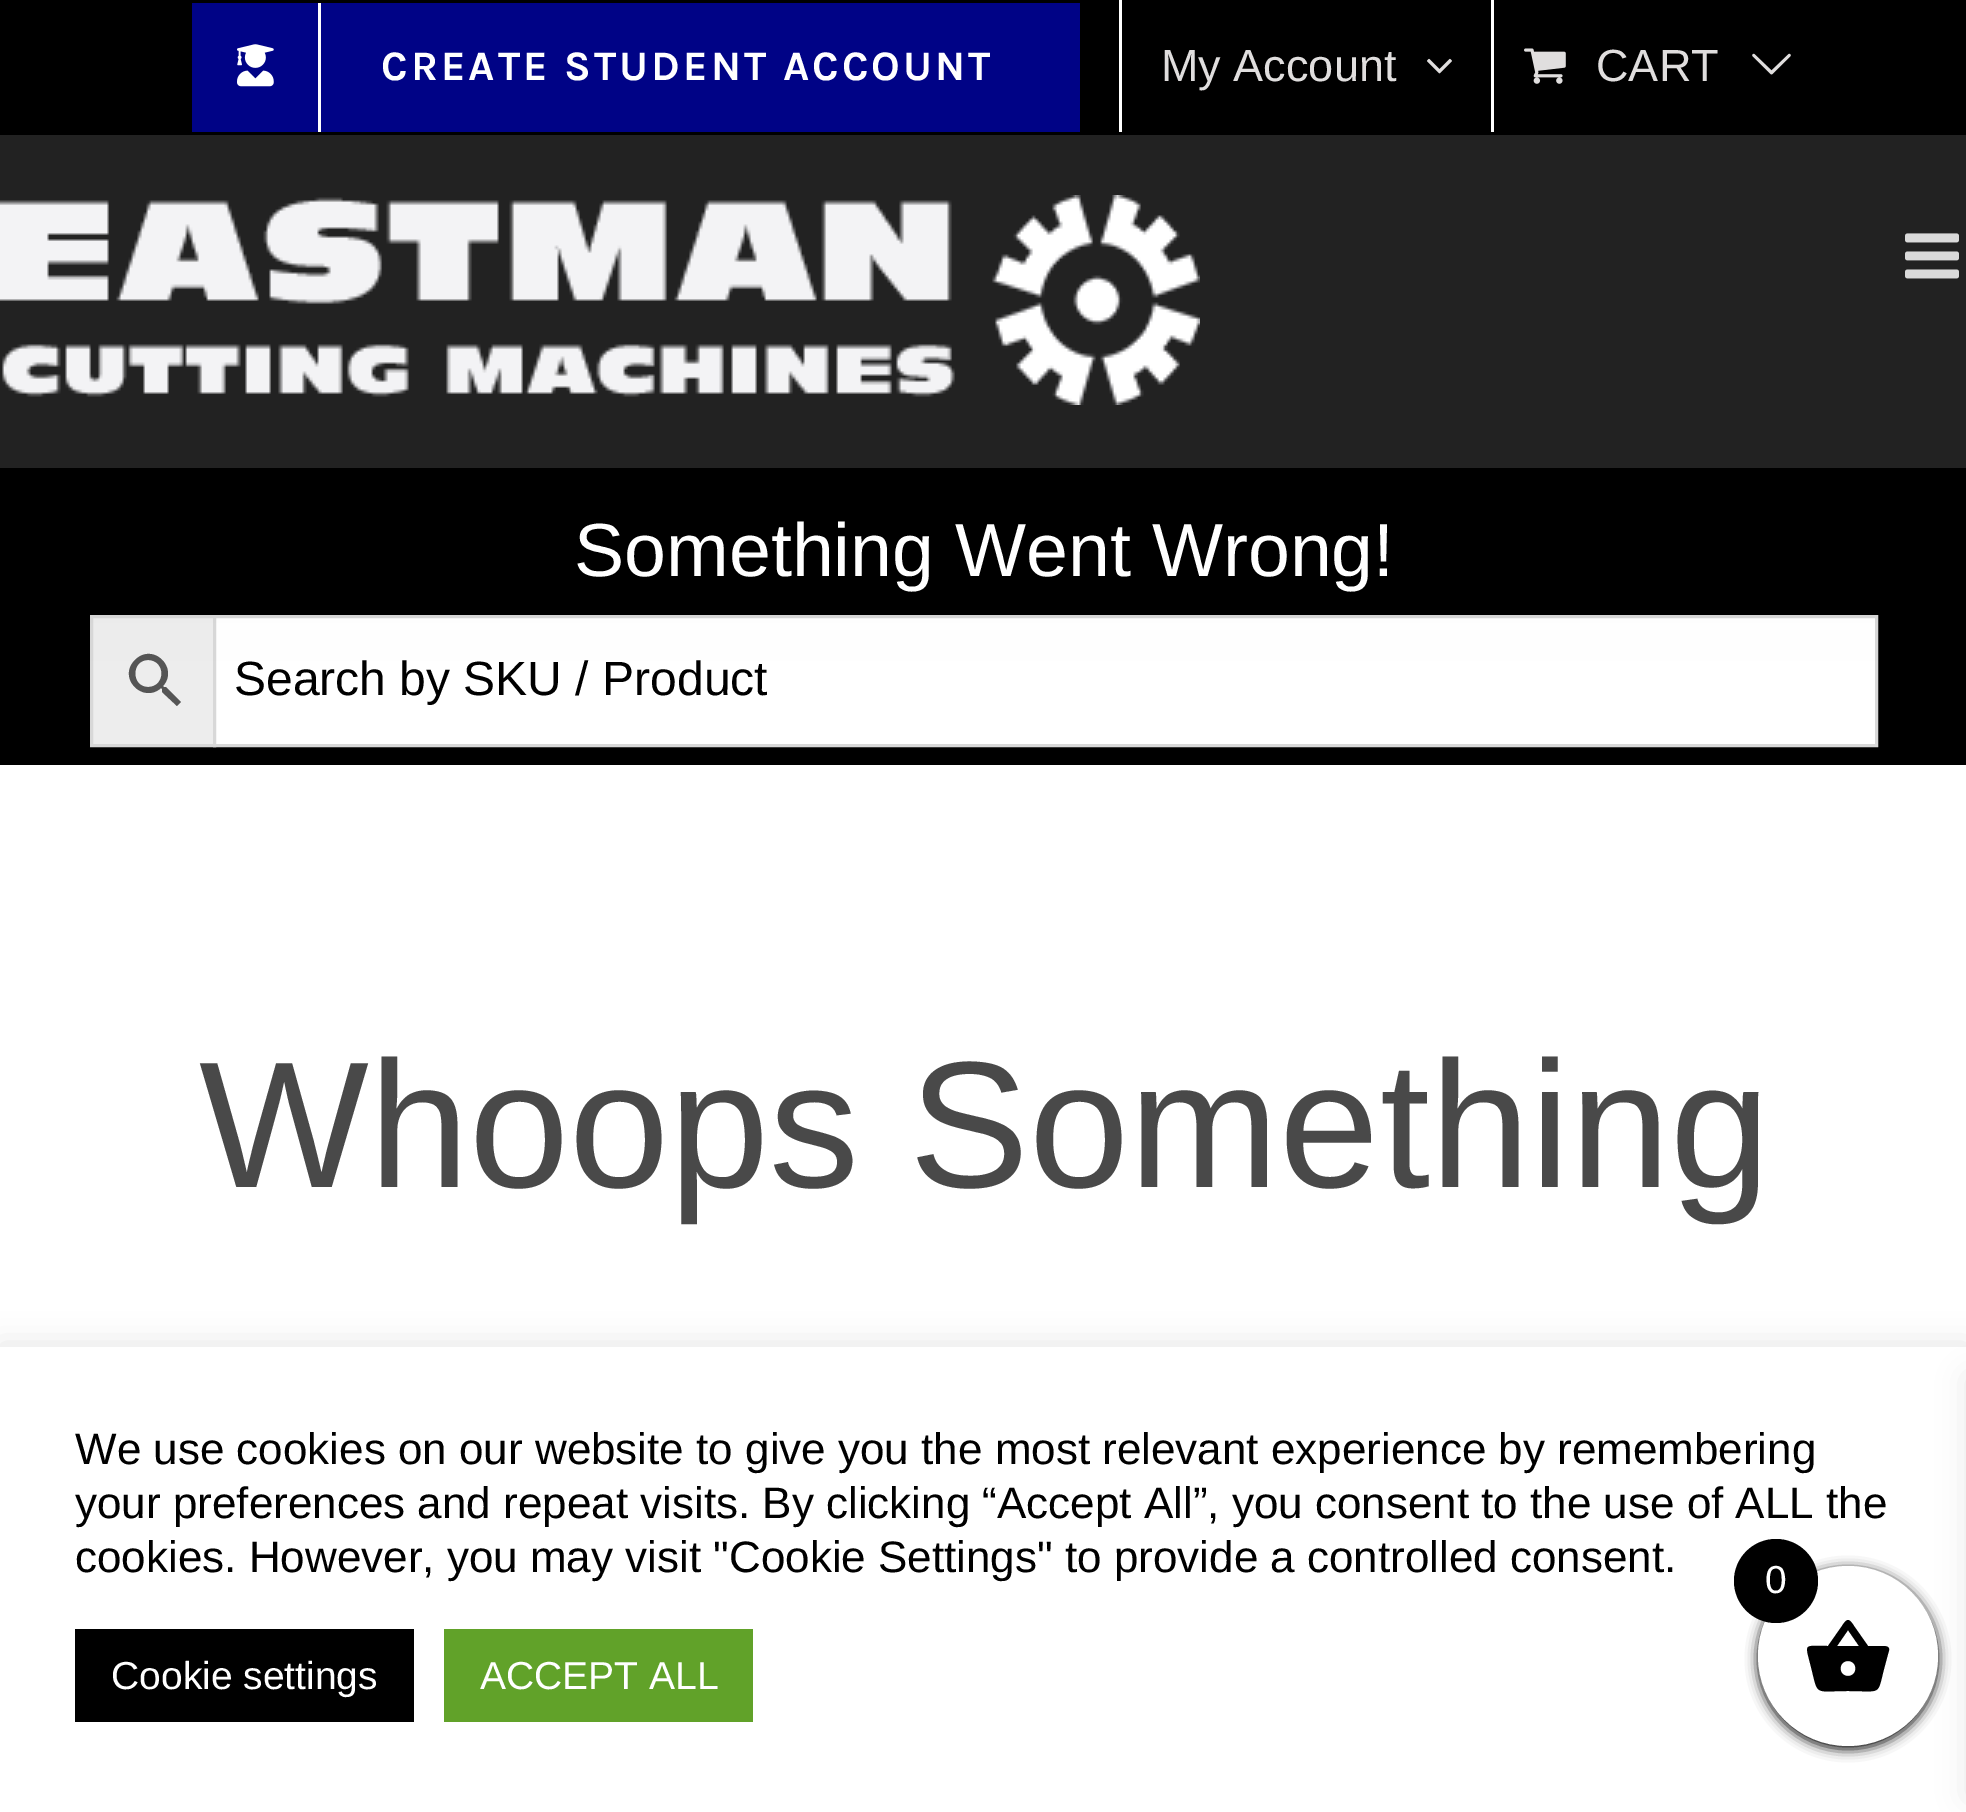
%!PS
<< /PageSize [1966 1812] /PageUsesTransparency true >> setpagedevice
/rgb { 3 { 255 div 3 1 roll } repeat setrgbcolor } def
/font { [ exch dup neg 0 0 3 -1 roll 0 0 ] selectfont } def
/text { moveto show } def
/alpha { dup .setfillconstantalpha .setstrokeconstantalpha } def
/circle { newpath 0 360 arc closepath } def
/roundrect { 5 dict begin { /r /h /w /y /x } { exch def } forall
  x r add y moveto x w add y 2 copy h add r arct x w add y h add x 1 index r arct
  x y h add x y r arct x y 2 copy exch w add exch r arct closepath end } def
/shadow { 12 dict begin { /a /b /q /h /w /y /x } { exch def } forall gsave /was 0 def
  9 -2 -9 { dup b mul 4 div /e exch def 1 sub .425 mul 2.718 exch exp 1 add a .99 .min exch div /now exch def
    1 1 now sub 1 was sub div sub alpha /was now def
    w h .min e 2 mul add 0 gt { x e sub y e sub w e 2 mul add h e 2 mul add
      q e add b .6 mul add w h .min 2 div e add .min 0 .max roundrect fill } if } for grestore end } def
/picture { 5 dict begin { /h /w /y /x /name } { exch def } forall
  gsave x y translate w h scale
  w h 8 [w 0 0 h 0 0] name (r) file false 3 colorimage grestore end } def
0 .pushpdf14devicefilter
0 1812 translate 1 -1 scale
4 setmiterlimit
255 255 255 rgb
0 0 1966 1812 rectfill
0 0 0 rgb
0 468 1966 297 rectfill
237 237 237 rgb
91.5 616.5 moveto 123 0 rlineto 0 129 rlineto -123 0 rlineto closepath gsave fill grestore
216 216 216 rgb
3 setlinewidth
stroke
85 85 85 rgb
166 687 moveto -2 0 rlineto -1 -1 rlineto 16 -18 -10 -44 -28 -26 rcurveto -18 18 8 44 26 28 rcurveto 1 1 rlineto 0 3 rlineto 15 14 rlineto 4 -4 rlineto closepath 148 687 moveto -17 0 -17 -27 0 -27 rcurveto 18 0 18 27 0 27 rcurveto closepath fill
255 255 255 rgb
214.5 616.5 moveto 1662 0 rlineto 0 129 rlineto -1662 0 rlineto closepath gsave fill grestore
216 216 216 rgb
stroke
0 0 0 rgb
6 36 1956 456 0 75 0.14 shadow
0 0 1966 135 rectfill
0 3 134 rgb
192 3 888 129 rectfill
255 255 255 rgb
318 3 3 129 rectfill
(img_01.rgb) 237 44 37 43 picture
1119 0 3 132 rectfill
(img_02.rgb) 1427 58 25 16 picture
1491 0 3 132 rectfill
(img_03.rgb) 1524 48 42 36 picture
(img_04.rgb) 1752 53 39 22 picture
34 34 34 rgb
0 135 1966 333 rectfill
(img_05.rgb) 0 195 1200 210 picture
(img_06.rgb) 1905 233 54 46 picture
172 171 171 rgb
0 1344 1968 465 0 15 0.3 shadow
255 255 255 rgb
0 1347 1966 465 rectfill
0 0 0 rgb
75 1629 339 93 rectfill
97 162 41 rgb
444 1629 309 93 rectfill
0 0 0 rgb
1758 1569 180 180 90 6 1 shadow
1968 1377 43 420 0 15 0.1 shadow
255 255 255 rgb
1848 1656 90 circle fill
0 0 0 rgb
1848 1676 moveto 10 0 10 -15 0 -15 rcurveto -10 0 -10 15 0 15 rcurveto closepath 1837 1646 moveto 22 0 rlineto -11 -16 rlineto closepath 1868 1646 moveto 14 0 rlineto 8 0 8 2 6 8 rcurveto -4 15 rlineto -7 27 -2 22 -36 22 rcurveto -36 0 -29 6 -38 -28 rcurveto -5 -20 -6 -17 18 -17 rcurveto 14 -20 rlineto 5 -8 7 -8 12 0 rcurveto closepath fill
1776 1581 42 circle fill
/Karla-Bold 42 font
255 255 255 rgb
381 80 moveto 3 0 (CREATE STUDENT ACCOUNT) ashow
/LiberationSans-Regular 45 font
224 222 222 rgb
(My Account) 1161 81 text
(CART) 1596 81 text
/LiberationSans-Regular 75.3 font
255 255 255 rgb
(Something Went Wrong!) 574 576 text
/LiberationSans-Regular 48 font
0 0 0 rgb
(Search by SKU / Product) 234 695 text
/LiberationSans-Regular 180 font
73 73 73 rgb
(Whoops Something) 199 1187 text
/LiberationSans-Regular 44 font
0 0 0 rgb
(We use cookies on our website to give you the most relevant experience by remembering) 75 1464 text
(your preferences and repeat visits. By clicking “Accept All”, you consent to the use of ALL the) 75 1518 text
(cookies. However, you may visit "Cookie Settings" to provide a controlled consent.) 75 1572 text
/LiberationSans-Regular 39 font
255 255 255 rgb
(Cookie settings) 111 1689 text
(ACCEPT ALL) 480 1689 text
(0) 1765 1593 text
.poppdf14devicefilter showpage
